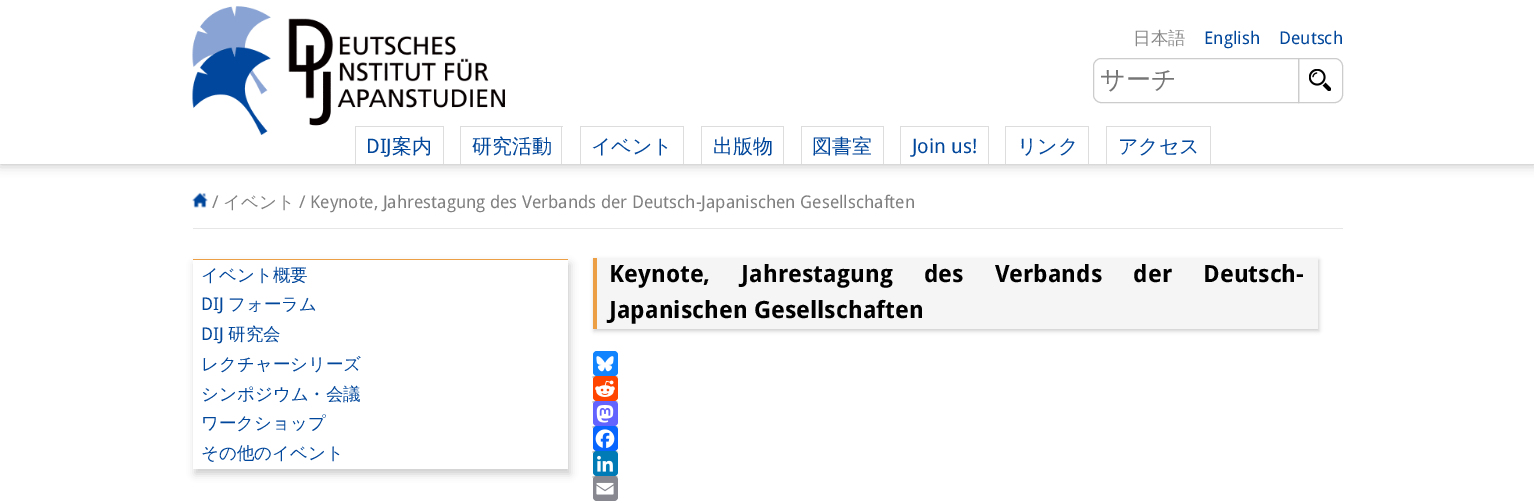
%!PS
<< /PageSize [1534 501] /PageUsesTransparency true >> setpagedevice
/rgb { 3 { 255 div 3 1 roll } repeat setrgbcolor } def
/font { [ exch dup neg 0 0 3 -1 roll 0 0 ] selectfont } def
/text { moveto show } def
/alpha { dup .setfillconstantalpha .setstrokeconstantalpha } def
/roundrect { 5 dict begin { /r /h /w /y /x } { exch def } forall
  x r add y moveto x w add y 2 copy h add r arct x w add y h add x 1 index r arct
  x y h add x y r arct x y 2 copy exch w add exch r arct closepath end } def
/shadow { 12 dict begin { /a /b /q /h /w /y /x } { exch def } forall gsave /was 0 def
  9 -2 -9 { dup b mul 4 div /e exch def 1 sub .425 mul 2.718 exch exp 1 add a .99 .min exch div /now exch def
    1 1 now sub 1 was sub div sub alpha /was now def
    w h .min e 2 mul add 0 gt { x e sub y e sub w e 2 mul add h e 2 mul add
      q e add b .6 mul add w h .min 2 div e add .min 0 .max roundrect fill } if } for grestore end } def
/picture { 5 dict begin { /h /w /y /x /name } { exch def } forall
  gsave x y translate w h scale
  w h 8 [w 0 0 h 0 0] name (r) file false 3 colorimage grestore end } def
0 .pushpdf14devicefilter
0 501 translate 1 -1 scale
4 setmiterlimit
255 255 255 rgb
0 0 1534 501 rectfill
0 0 0 rgb
0 0 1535 164 0 6 0.3 shadow
255 255 255 rgb
0 0 1534 164 rectfill
(img_01.rgb) 192 6 313 129 picture
(img_02.rgb) 1309 69 22 22 picture
204 204 204 rgb
1298.5 58.5 moveto 36.5 0 rlineto 4 0 7.5 3.5 7.5 7.5 rcurveto 0 29 rlineto 0 4 -3.5 7.5 -7.5 7.5 rcurveto -36.5 0 rlineto closepath stroke
255 255 255 rgb
1101 58.5 moveto 197.5 0 rlineto 0 44 rlineto -197.5 0 rlineto -4 0 -7.5 -3.5 -7.5 -7.5 rcurveto 0 -29 rlineto 0 -4 3.5 -7.5 7.5 -7.5 rcurveto closepath gsave fill grestore
204 204 204 rgb
stroke
221 221 221 rgb
355 126 89 1 rectfill
443 126 1 38 rectfill
355 126 1 38 rectfill
460 126 103 1 rectfill
561 126 1 38 rectfill
460 126 1 38 rectfill
580 126 104 1 rectfill
683 126 1 38 rectfill
580 126 1 38 rectfill
701 126 83 1 rectfill
783 126 1 38 rectfill
701 126 1 38 rectfill
801 126 83 1 rectfill
883 126 1 38 rectfill
801 126 1 38 rectfill
900 126 89 1 rectfill
988 126 1 38 rectfill
900 126 1 38 rectfill
1005 126 84 1 rectfill
1088 126 1 38 rectfill
1005 126 1 38 rectfill
1106 126 105 1 rectfill
1210 126 1 38 rectfill
1106 126 1 38 rectfill
230 230 230 rgb
193 228 1150 1 rectfill
(img_03.rgb) 192 192 16 16 picture
gsave
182 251 moveto 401 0 rlineto 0 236 rlineto -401 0 rlineto closepath 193 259 moveto 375 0 rlineto 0 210 rlineto -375 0 rlineto closepath eoclip newpath
204 204 204 rgb
195 264 375 210 0 4 1 shadow
grestore
237 159 69 rgb
193 259 375 1 rectfill
gsave
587 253 moveto 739 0 rlineto 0 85 rlineto -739 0 rlineto closepath 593 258 moveto 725 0 rlineto 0 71 rlineto -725 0 rlineto closepath eoclip newpath
204 204 204 rgb
594 260 725 71 0 2 1 shadow
grestore
0.07 alpha
119 119 119 rgb
597 258 721 71 rectfill
1 alpha
237 159 69 rgb
593 258 4 71 rectfill
171 171 171 rgb
1.2 setlinewidth
[3.75 3.34] 0 setdash
592.5 377 moveto 25 0 rlineto stroke
593 378 1 1 rectfill
18 133 254 rgb
593 351 25 25 4 roundrect fill
(img_04.rgb) 596 356 18 16 picture
171 171 171 rgb
592.5 402 moveto 25 0 rlineto stroke
593 403 1 1 rectfill
255 69 0 rgb
593 376 25 25 4 roundrect fill
(img_05.rgb) 595 380 20 17 picture
171 171 171 rgb
592.5 427 moveto 25 0 rlineto stroke
593 428 1 1 rectfill
99 100 255 rgb
593 401 25 25 4 roundrect fill
(img_06.rgb) 596 405 18 18 picture
171 171 171 rgb
592.5 452 moveto 25 0 rlineto stroke
593 453 1 1 rectfill
8 102 255 rgb
593 426 25 25 4 roundrect fill
(img_07.rgb) 595 429 20 19 picture
171 171 171 rgb
592.5 477 moveto 25 0 rlineto stroke
593 478 1 1 rectfill
0 123 181 rgb
593 451 25 25 4 roundrect fill
(img_08.rgb) 597 455 16 17 picture
136 137 144 rgb
593 476 25 25 4 roundrect fill
(img_09.rgb) 596 482 18 13 picture
/WenQuanYiZenHei-Medium 17.5 font
136 136 136 rgb
(日本語) 1133 44 text
/DroidSans-Regular 17.5 font
0 70 155 rgb
(English) 1204 44 text
(Deutsch) 1279 44 text
/WenQuanYiZenHei-Medium 25 font
117 117 117 rgb
(サーチ) 1100 88 text
/DroidSans-Regular 20 font
0 70 155 rgb
(DIJ) 366 153 text
/WenQuanYiZenHei-Medium 20 font
(案内) 392 153 text
(研究活動) 472 153 text
(イベント) 591 153 text
(出版物) 713 153 text
(図書室) 812 153 text
/DroidSans-Regular 20 font
(Join us!) 912 153 text
/WenQuanYiZenHei-Medium 20 font
(リンク) 1017 153 text
(アクセス) 1118 153 text
/DroidSans-Regular 17.5 font
128 128 128 rgb
(/) 212 208 text
/WenQuanYiZenHei-Medium 17.5 font
(イベント) 223 208 text
/DroidSans-Regular 17.5 font
(/ Keynote, Jahrestagung des Verbands der Deutsch-Japanischen Gesellschaften) 299 208 text
/WenQuanYiZenHei-Medium 17.5 font
0 70 155 rgb
(イベント概要) 201 281 text
/DroidSans-Regular 17.5 font
(DIJ) 201 310 text
/WenQuanYiZenHei-Medium 17.5 font
(フォーラム) 228 310 text
/DroidSans-Regular 17.5 font
(DIJ) 201 340 text
/WenQuanYiZenHei-Medium 17.5 font
(研究会) 228 340 text
(レクチャーシリーズ) 201 370 text
(シンポジウム・会議) 201 400 text
(ワークショップ) 201 429 text
(その他のイベント) 201 459 text
/DroidSans-Bold 23.75 font
0 0 0 rgb
609 282 moveto 25 0 32 (Keynote, Jahrestagung des Verbands der Deutsch-) widthshow
(Japanischen Gesellschaften) 609 318 text
.poppdf14devicefilter showpage
